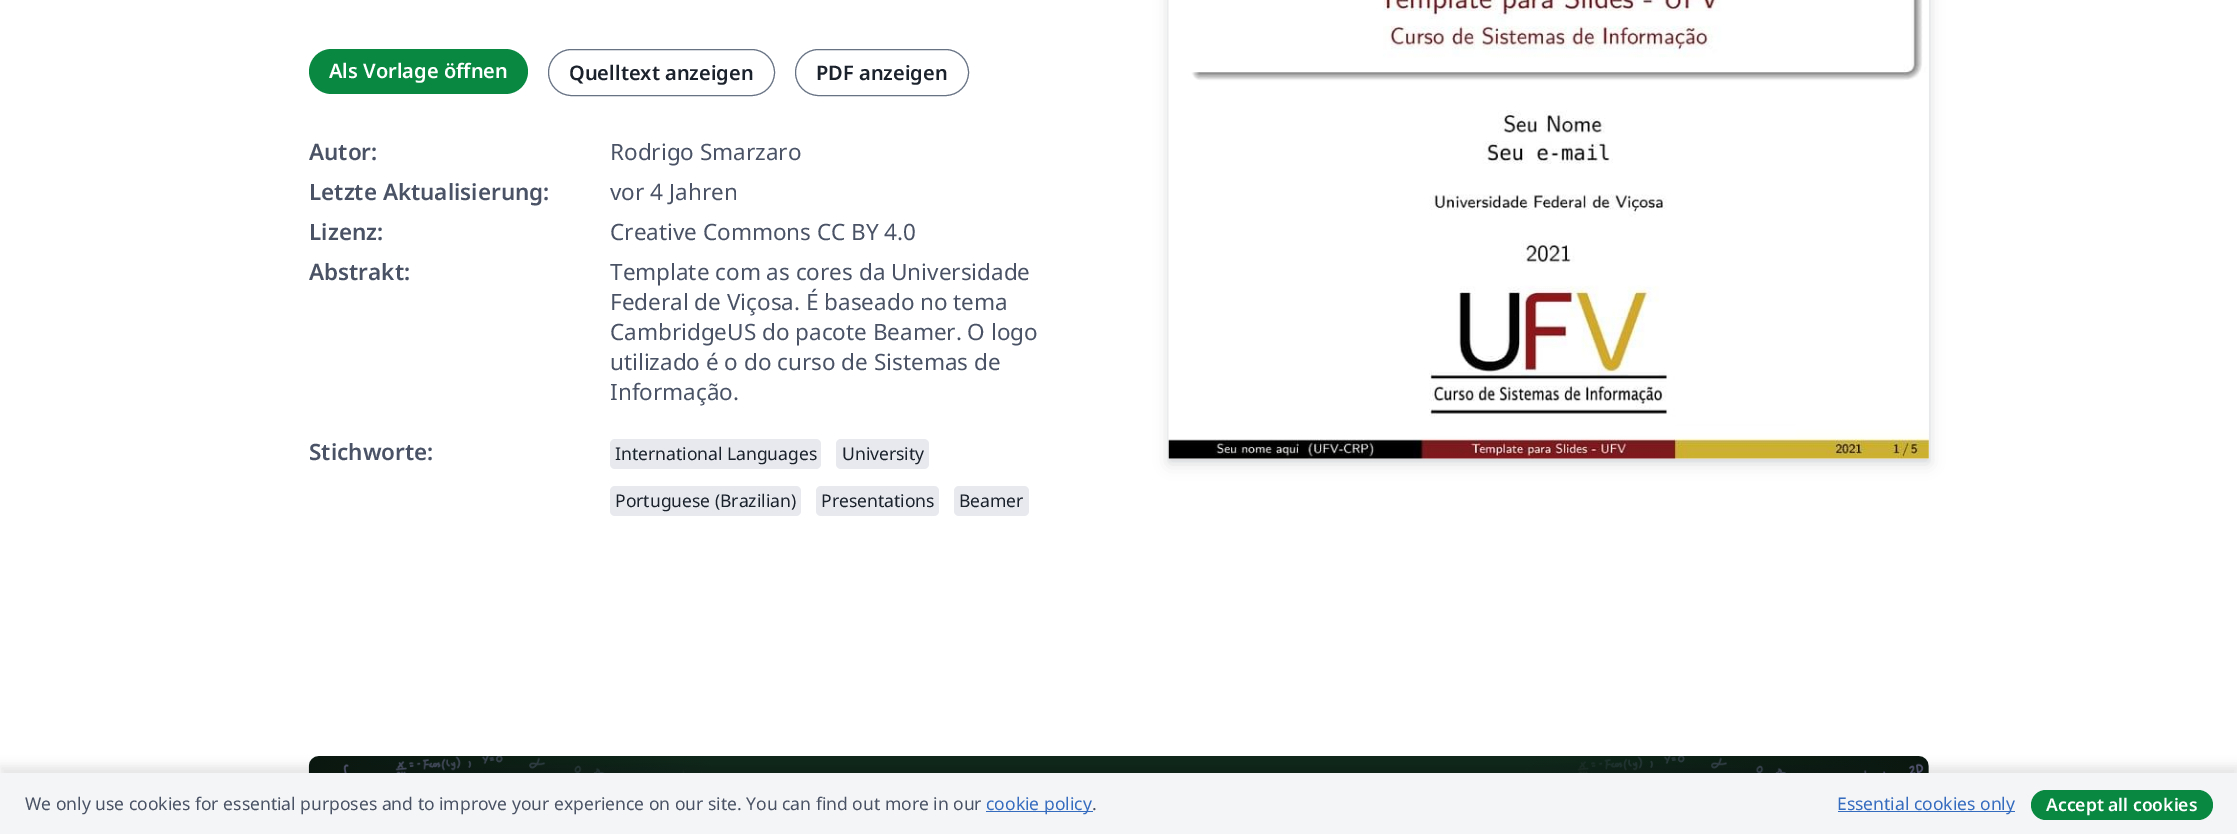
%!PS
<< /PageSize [2237 834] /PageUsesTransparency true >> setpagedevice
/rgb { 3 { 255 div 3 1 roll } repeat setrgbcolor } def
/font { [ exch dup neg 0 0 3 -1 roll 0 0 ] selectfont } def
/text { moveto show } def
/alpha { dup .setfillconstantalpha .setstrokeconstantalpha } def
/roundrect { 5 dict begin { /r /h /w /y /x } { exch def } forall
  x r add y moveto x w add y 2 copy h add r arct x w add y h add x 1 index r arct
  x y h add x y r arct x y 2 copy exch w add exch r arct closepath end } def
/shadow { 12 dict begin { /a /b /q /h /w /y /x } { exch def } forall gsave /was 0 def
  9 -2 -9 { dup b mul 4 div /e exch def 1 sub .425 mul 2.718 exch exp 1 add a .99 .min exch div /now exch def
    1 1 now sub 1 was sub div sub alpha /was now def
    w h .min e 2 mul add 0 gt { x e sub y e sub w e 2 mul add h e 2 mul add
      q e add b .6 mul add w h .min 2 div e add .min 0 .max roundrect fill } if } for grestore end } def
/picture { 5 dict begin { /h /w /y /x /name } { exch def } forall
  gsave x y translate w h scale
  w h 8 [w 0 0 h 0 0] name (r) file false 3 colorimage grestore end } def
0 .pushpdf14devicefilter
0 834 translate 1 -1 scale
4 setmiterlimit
255 255 255 rgb
0 0 2237 834 rectfill
9 136 66 rgb
309 49 219 45 22.5 roundrect fill
103 114 131 rgb
548.5 49.5 226 46 23 roundrect stroke
795.5 49.5 173 46 23 roundrect stroke
231 233 238 rgb
610 439 211 30 5 roundrect fill
836 439 93 30 5 roundrect fill
610 486 191 30 5 roundrect fill
816 486 123 30 5 roundrect fill
954 486 75 30 5 roundrect fill
30 37 48 rgb
1169 -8 760 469 0 2.5 0.08 shadow
1169 -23 760 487 0 7.5 0.12 shadow
(img_01.rgb) 1168 0 761 459 picture
244 245 246 rgb
309 756 1620 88 10 roundrect fill
(img_02.rgb) 308 756 1621 17 picture
0 0 0 rgb
0 766 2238 63 0 5 0.1 shadow
244 245 246 rgb
0 773 2237 61 rectfill
54 108 191 rgb
986 811 107 1 rectfill
1838 811 177 1 rectfill
9 136 66 rgb
2031 790 182 30 15 roundrect fill
/NotoSans-SemiBold 20 font
255 255 255 rgb
(Als Vorlage öffnen) 329 78 text
27 34 44 rgb
(Quelltext anzeigen) 569 80 text
(PDF anzeigen) 816 80 text
/NotoSans-SemiBold 22.5 font
73 83 101 rgb
(Autor:) 309 160 text
/NotoSans-Regular 22.5 font
(Rodrigo Smarzaro) 610 160 text
/NotoSans-SemiBold 22.5 font
(Letzte Aktualisierung:) 309 200 text
/NotoSans-Regular 22.5 font
(vor 4 Jahren) 610 200 text
/NotoSans-SemiBold 22.5 font
(Lizenz:) 309 240 text
/NotoSans-Regular 22.5 font
(Creative Commons CC BY 4.0) 610 240 text
/NotoSans-SemiBold 22.5 font
(Abstrakt:) 309 280 text
/NotoSans-Regular 22.5 font
(Template com as cores da Universidade) 610 280 text
(Federal de Viçosa. É baseado no tema) 610 310 text
(CambridgeUS do pacote Beamer. O logo) 610 340 text
(utilizado é o do curso de Sistemas de) 610 370 text
(Informação.) 610 400 text
/NotoSans-SemiBold 22.5 font
(Stichworte:) 309 460 text
/NotoSans-Regular 17.5 font
27 34 44 rgb
(International Languages) 615 460 text
(University) 842 460 text
(Portuguese \(Brazilian\)) 615 507 text
(Presentations) 821 507 text
(Beamer) 959 507 text
73 83 101 rgb
(We only use cookies for essential purposes and to improve your experience on our site. You can find out more in our) 25 810 text
54 108 191 rgb
(cookie policy) 986 810 text
73 83 101 rgb
(.) 1092 810 text
54 108 191 rgb
(Essential cookies only) 1837 810 text
/NotoSans-SemiBold 17.5 font
255 255 255 rgb
(Accept all cookies) 2046 811 text
.poppdf14devicefilter showpage
